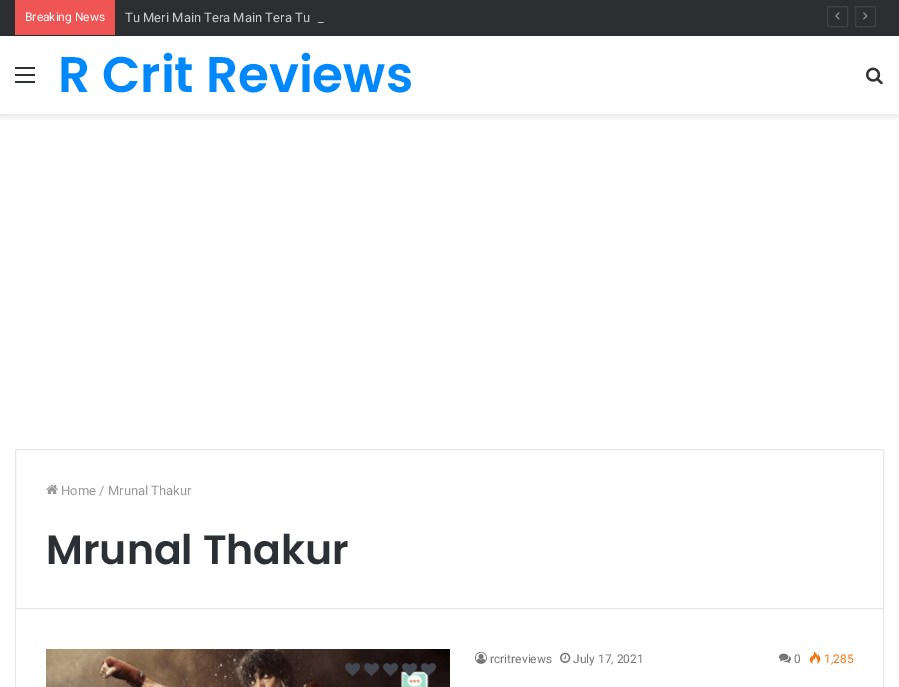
%!PS
<< /PageSize [899 687] /PageUsesTransparency true >> setpagedevice
/rgb { 3 { 255 div 3 1 roll } repeat setrgbcolor } def
/font { [ exch dup neg 0 0 3 -1 roll 0 0 ] selectfont } def
/text { moveto show } def
/alpha { dup .setfillconstantalpha .setstrokeconstantalpha } def
/roundrect { 5 dict begin { /r /h /w /y /x } { exch def } forall
  x r add y moveto x w add y 2 copy h add r arct x w add y h add x 1 index r arct
  x y h add x y r arct x y 2 copy exch w add exch r arct closepath end } def
/shadow { 12 dict begin { /a /b /q /h /w /y /x } { exch def } forall gsave /was 0 def
  9 -2 -9 { dup b mul 4 div /e exch def 1 sub .425 mul 2.718 exch exp 1 add a .99 .min exch div /now exch def
    1 1 now sub 1 was sub div sub alpha /was now def
    w h .min e 2 mul add 0 gt { x e sub y e sub w e 2 mul add h e 2 mul add
      q e add b .6 mul add w h .min 2 div e add .min 0 .max roundrect fill } if } for grestore end } def
/picture { 5 dict begin { /h /w /y /x /name } { exch def } forall
  gsave x y translate w h scale
  w h 8 [w 0 0 h 0 0] name (r) file false 3 colorimage grestore end } def
0 .pushpdf14devicefilter
0 687 translate 1 -1 scale
4 setmiterlimit
255 255 255 rgb
0 0 899 687 rectfill
gsave
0 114 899 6 rectclip
0 0 0 rgb
0 39 899 78 0 3.5 0.1 shadow
grestore
44 46 50 rgb
0 0 899 35 rectfill
40 41 45 rgb
0 35 899 1 rectfill
240 85 85 rgb
15 0 100 35 rectfill
65 67 71 rgb
827.5 6.5 20 20 1.5 roundrect stroke
(img_01.rgb) 835 12 5 8 picture
855.5 6.5 20 20 1.5 roundrect stroke
(img_02.rgb) 863 12 5 8 picture
44 47 52 rgb
15 74 20 2 rectfill
15 67 20 2 rectfill
15 81 20 2 rectfill
(img_03.rgb) 866 67 17 18 picture
230 230 230 rgb
17 449.5 moveto 865 0 rlineto 1 0 1.5 0.5 1.5 1.5 rcurveto 0 157.5 rlineto -868 0 rlineto 0 -157.5 rlineto 0 -1 0.5 -1.5 1.5 -1.5 rcurveto closepath stroke
(img_04.rgb) 46 484 12 11 picture
883 609 1 78 rectfill
15 609 1 78 rectfill
(img_05.rgb) 46 649 404 38 picture
(img_06.rgb) 345 663 91 13 picture
(img_07.rgb) 475 651 12 13 picture
(img_08.rgb) 560 652 11 11 picture
(img_09.rgb) 779 653 12 10 picture
(img_10.rgb) 809 651 12 13 picture
/Roboto-Regular 12 font
255 255 255 rgb
(Breaking News) 25 21 text
/Roboto-Regular 13 font
204 204 204 rgb
(Tu Meri Main Tera Main Tera Tu) 125 22 text
(_) 318 22 text
/Poppins-SemiBold 50 font
0 136 255 rgb
(R Crit Reviews) 58 92 text
/Roboto-Regular 13 font
153 153 153 rgb
(Home / Mrunal Thakur) 61 495 text
/Poppins-SemiBold 41 font
44 47 52 rgb
(Mrunal Thakur) 46 564 text
/Roboto-Regular 12 font
118 118 118 rgb
(rcritreviews) 490 663 text
(July 17, 2021) 573 663 text
(0) 794 663 text
244 117 18 rgb
(1,285) 824 663 text
.poppdf14devicefilter showpage
